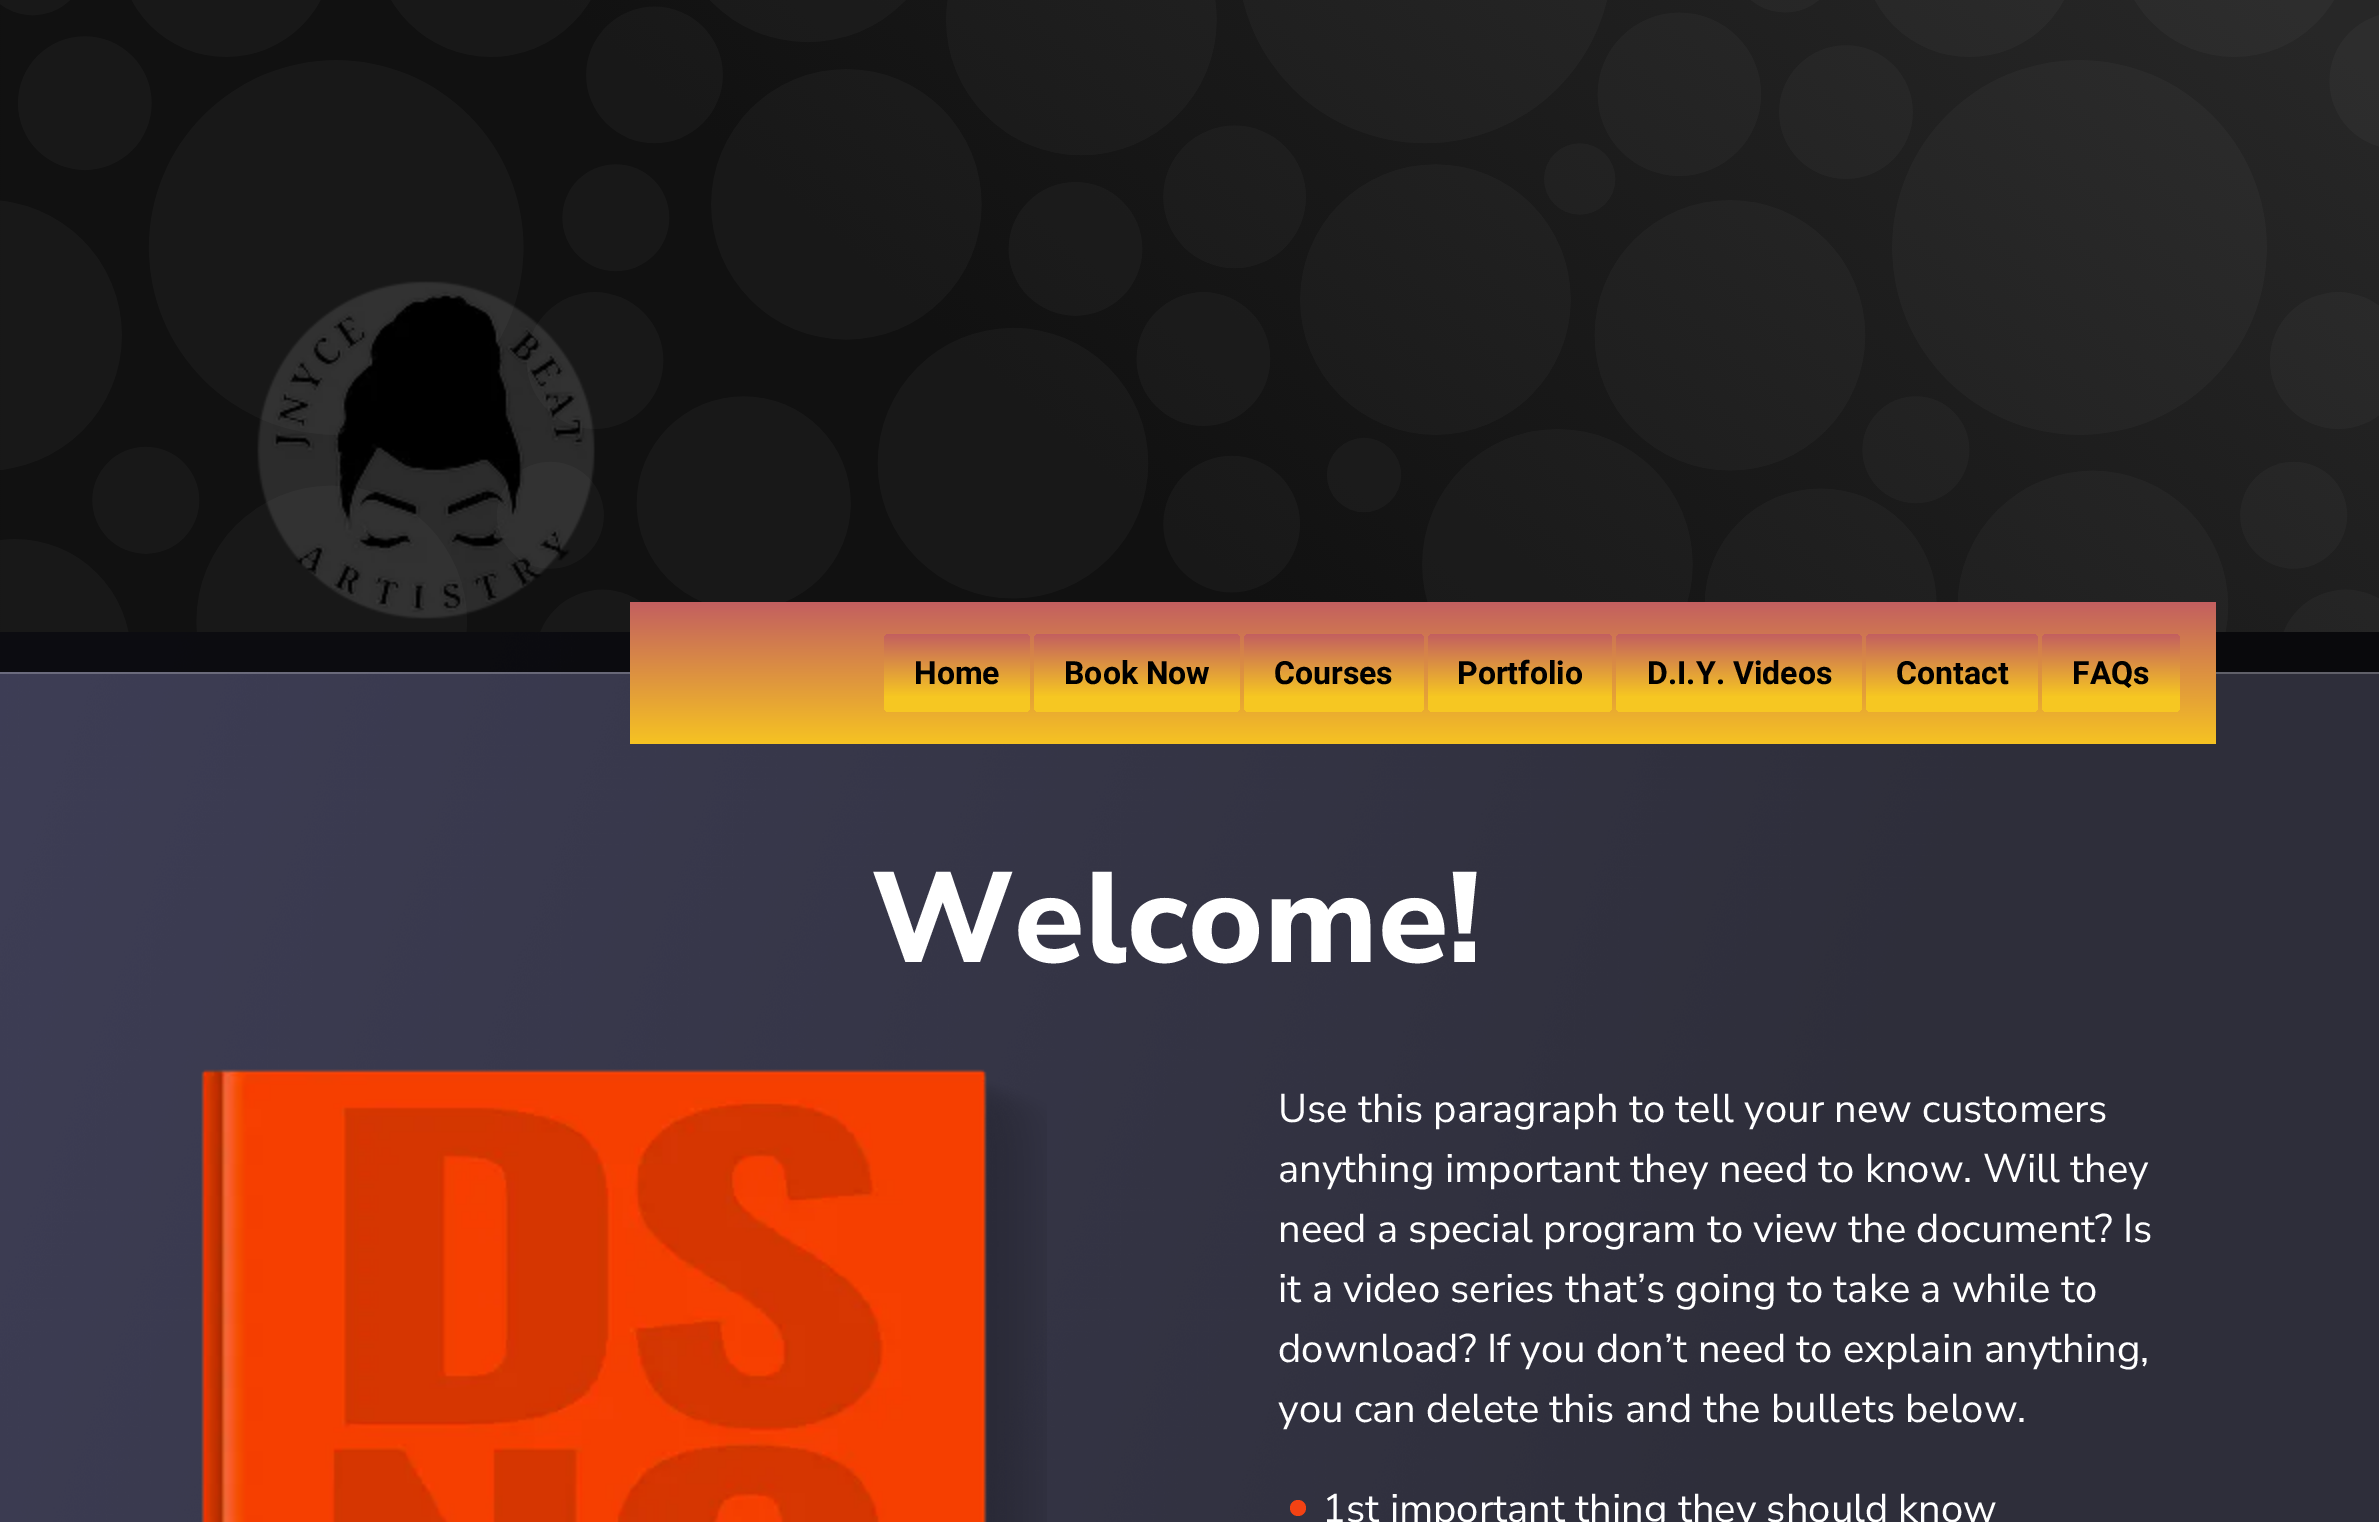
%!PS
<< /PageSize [2379 1522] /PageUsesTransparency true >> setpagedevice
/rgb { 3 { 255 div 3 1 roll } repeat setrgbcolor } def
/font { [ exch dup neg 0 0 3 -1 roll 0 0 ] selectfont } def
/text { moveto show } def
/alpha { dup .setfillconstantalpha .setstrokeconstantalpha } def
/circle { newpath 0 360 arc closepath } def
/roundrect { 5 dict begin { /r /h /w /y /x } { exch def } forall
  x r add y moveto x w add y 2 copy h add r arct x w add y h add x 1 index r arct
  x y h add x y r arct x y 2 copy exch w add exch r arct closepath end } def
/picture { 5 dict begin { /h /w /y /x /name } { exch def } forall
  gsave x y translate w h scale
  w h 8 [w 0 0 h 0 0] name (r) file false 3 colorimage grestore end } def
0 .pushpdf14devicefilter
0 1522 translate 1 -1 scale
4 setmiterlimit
255 255 255 rgb
0 0 2379 1522 rectfill
(img_01.rgb) 0 0 2379 632 picture
(img_02.rgb) 257 281 338 338 picture
(img_03.rgb) 0 632 2379 890 picture
0.24 alpha
0 672 2379 2 rectfill
0.8 alpha
0 0 0 rgb
0 632 2379 40 rectfill
1 alpha
gsave 630 602 moveto 1586 0 rlineto 0 142 rlineto -1586 0 rlineto closepath clip newpath
<< /ShadingType 2 /ColorSpace /DeviceRGB /Coords [1423 744 1423 602] /Extend [true true] /Function << /FunctionType 2 /Domain [0 1] /C0 [0.965 0.765 0.133] /C1 [0.765 0.373 0.376] /N 1 >> >> shfill grestore
gsave 884 634 146 78 6 roundrect clip newpath
<< /ShadingType 2 /ColorSpace /DeviceRGB /Coords [957 712 957 634] /Extend [true true] /Function << /FunctionType 3 /Domain [0 1] /Functions [<< /FunctionType 2 /Domain [0 1] /C0 [0.965 0.78 0.133] /C1 [0.965 0.78 0.133] /N 1 >> << /FunctionType 2 /Domain [0 1] /C0 [0.965 0.78 0.133] /C1 [0.765 0.373 0.376] /N 1 >>] /Bounds [0.2] /Encode [0 1 0 1] >> >> shfill grestore
gsave 1034 634 206 78 6 roundrect clip newpath
<< /ShadingType 2 /ColorSpace /DeviceRGB /Coords [1137 712 1137 634] /Extend [true true] /Function << /FunctionType 3 /Domain [0 1] /Functions [<< /FunctionType 2 /Domain [0 1] /C0 [0.965 0.78 0.133] /C1 [0.965 0.78 0.133] /N 1 >> << /FunctionType 2 /Domain [0 1] /C0 [0.965 0.78 0.133] /C1 [0.765 0.373 0.376] /N 1 >>] /Bounds [0.2] /Encode [0 1 0 1] >> >> shfill grestore
gsave 1244 634 180 78 6 roundrect clip newpath
<< /ShadingType 2 /ColorSpace /DeviceRGB /Coords [1334 712 1334 634] /Extend [true true] /Function << /FunctionType 3 /Domain [0 1] /Functions [<< /FunctionType 2 /Domain [0 1] /C0 [0.965 0.78 0.133] /C1 [0.965 0.78 0.133] /N 1 >> << /FunctionType 2 /Domain [0 1] /C0 [0.965 0.78 0.133] /C1 [0.765 0.373 0.376] /N 1 >>] /Bounds [0.2] /Encode [0 1 0 1] >> >> shfill grestore
gsave 1428 634 184 78 6 roundrect clip newpath
<< /ShadingType 2 /ColorSpace /DeviceRGB /Coords [1520 712 1520 634] /Extend [true true] /Function << /FunctionType 3 /Domain [0 1] /Functions [<< /FunctionType 2 /Domain [0 1] /C0 [0.965 0.78 0.133] /C1 [0.965 0.78 0.133] /N 1 >> << /FunctionType 2 /Domain [0 1] /C0 [0.965 0.78 0.133] /C1 [0.765 0.373 0.376] /N 1 >>] /Bounds [0.2] /Encode [0 1 0 1] >> >> shfill grestore
gsave 1616 634 246 78 6 roundrect clip newpath
<< /ShadingType 2 /ColorSpace /DeviceRGB /Coords [1739 712 1739 634] /Extend [true true] /Function << /FunctionType 3 /Domain [0 1] /Functions [<< /FunctionType 2 /Domain [0 1] /C0 [0.965 0.78 0.133] /C1 [0.965 0.78 0.133] /N 1 >> << /FunctionType 2 /Domain [0 1] /C0 [0.965 0.78 0.133] /C1 [0.765 0.373 0.376] /N 1 >>] /Bounds [0.2] /Encode [0 1 0 1] >> >> shfill grestore
gsave 1866 634 172 78 6 roundrect clip newpath
<< /ShadingType 2 /ColorSpace /DeviceRGB /Coords [1952 712 1952 634] /Extend [true true] /Function << /FunctionType 3 /Domain [0 1] /Functions [<< /FunctionType 2 /Domain [0 1] /C0 [0.965 0.78 0.133] /C1 [0.965 0.78 0.133] /N 1 >> << /FunctionType 2 /Domain [0 1] /C0 [0.965 0.78 0.133] /C1 [0.765 0.373 0.376] /N 1 >>] /Bounds [0.2] /Encode [0 1 0 1] >> >> shfill grestore
gsave 2042 634 138 78 6 roundrect clip newpath
<< /ShadingType 2 /ColorSpace /DeviceRGB /Coords [2111 712 2111 634] /Extend [true true] /Function << /FunctionType 3 /Domain [0 1] /Functions [<< /FunctionType 2 /Domain [0 1] /C0 [0.965 0.78 0.133] /C1 [0.965 0.78 0.133] /N 1 >> << /FunctionType 2 /Domain [0 1] /C0 [0.965 0.78 0.133] /C1 [0.765 0.373 0.376] /N 1 >>] /Bounds [0.2] /Encode [0 1 0 1] >> >> shfill grestore
(img_04.rgb) 201 1069 846 453 picture
243 66 19 rgb
1298 1508 8 circle fill
/Roboto-Bold 32 font
0 0 0 rgb
(Home) 914 684 text
(Book Now) 1064 684 text
(Courses) 1274 684 text
(Portfolio) 1457 684 text
(D.I.Y. Videos) 1647 684 text
(Contact) 1896 684 text
(FAQs) 2072 684 text
/NunitoSans-ExtraLight 128 font
255 255 255 rgb
(Welcome!) 871 962 text
/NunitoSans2-ExtraLight 40 font
(Use this paragraph to tell your new customers) 1278 1122 text
(anything important they need to know. Will they) 1278 1182 text
(need a special program to view the document? Is) 1278 1242 text
(it a video series that’s going to take a while to) 1278 1302 text
(download? If you don’t need to explain anything,) 1278 1362 text
(you can delete this and the bullets below.) 1278 1422 text
(1st important thing they should know) 1322 1522 text
.poppdf14devicefilter showpage
